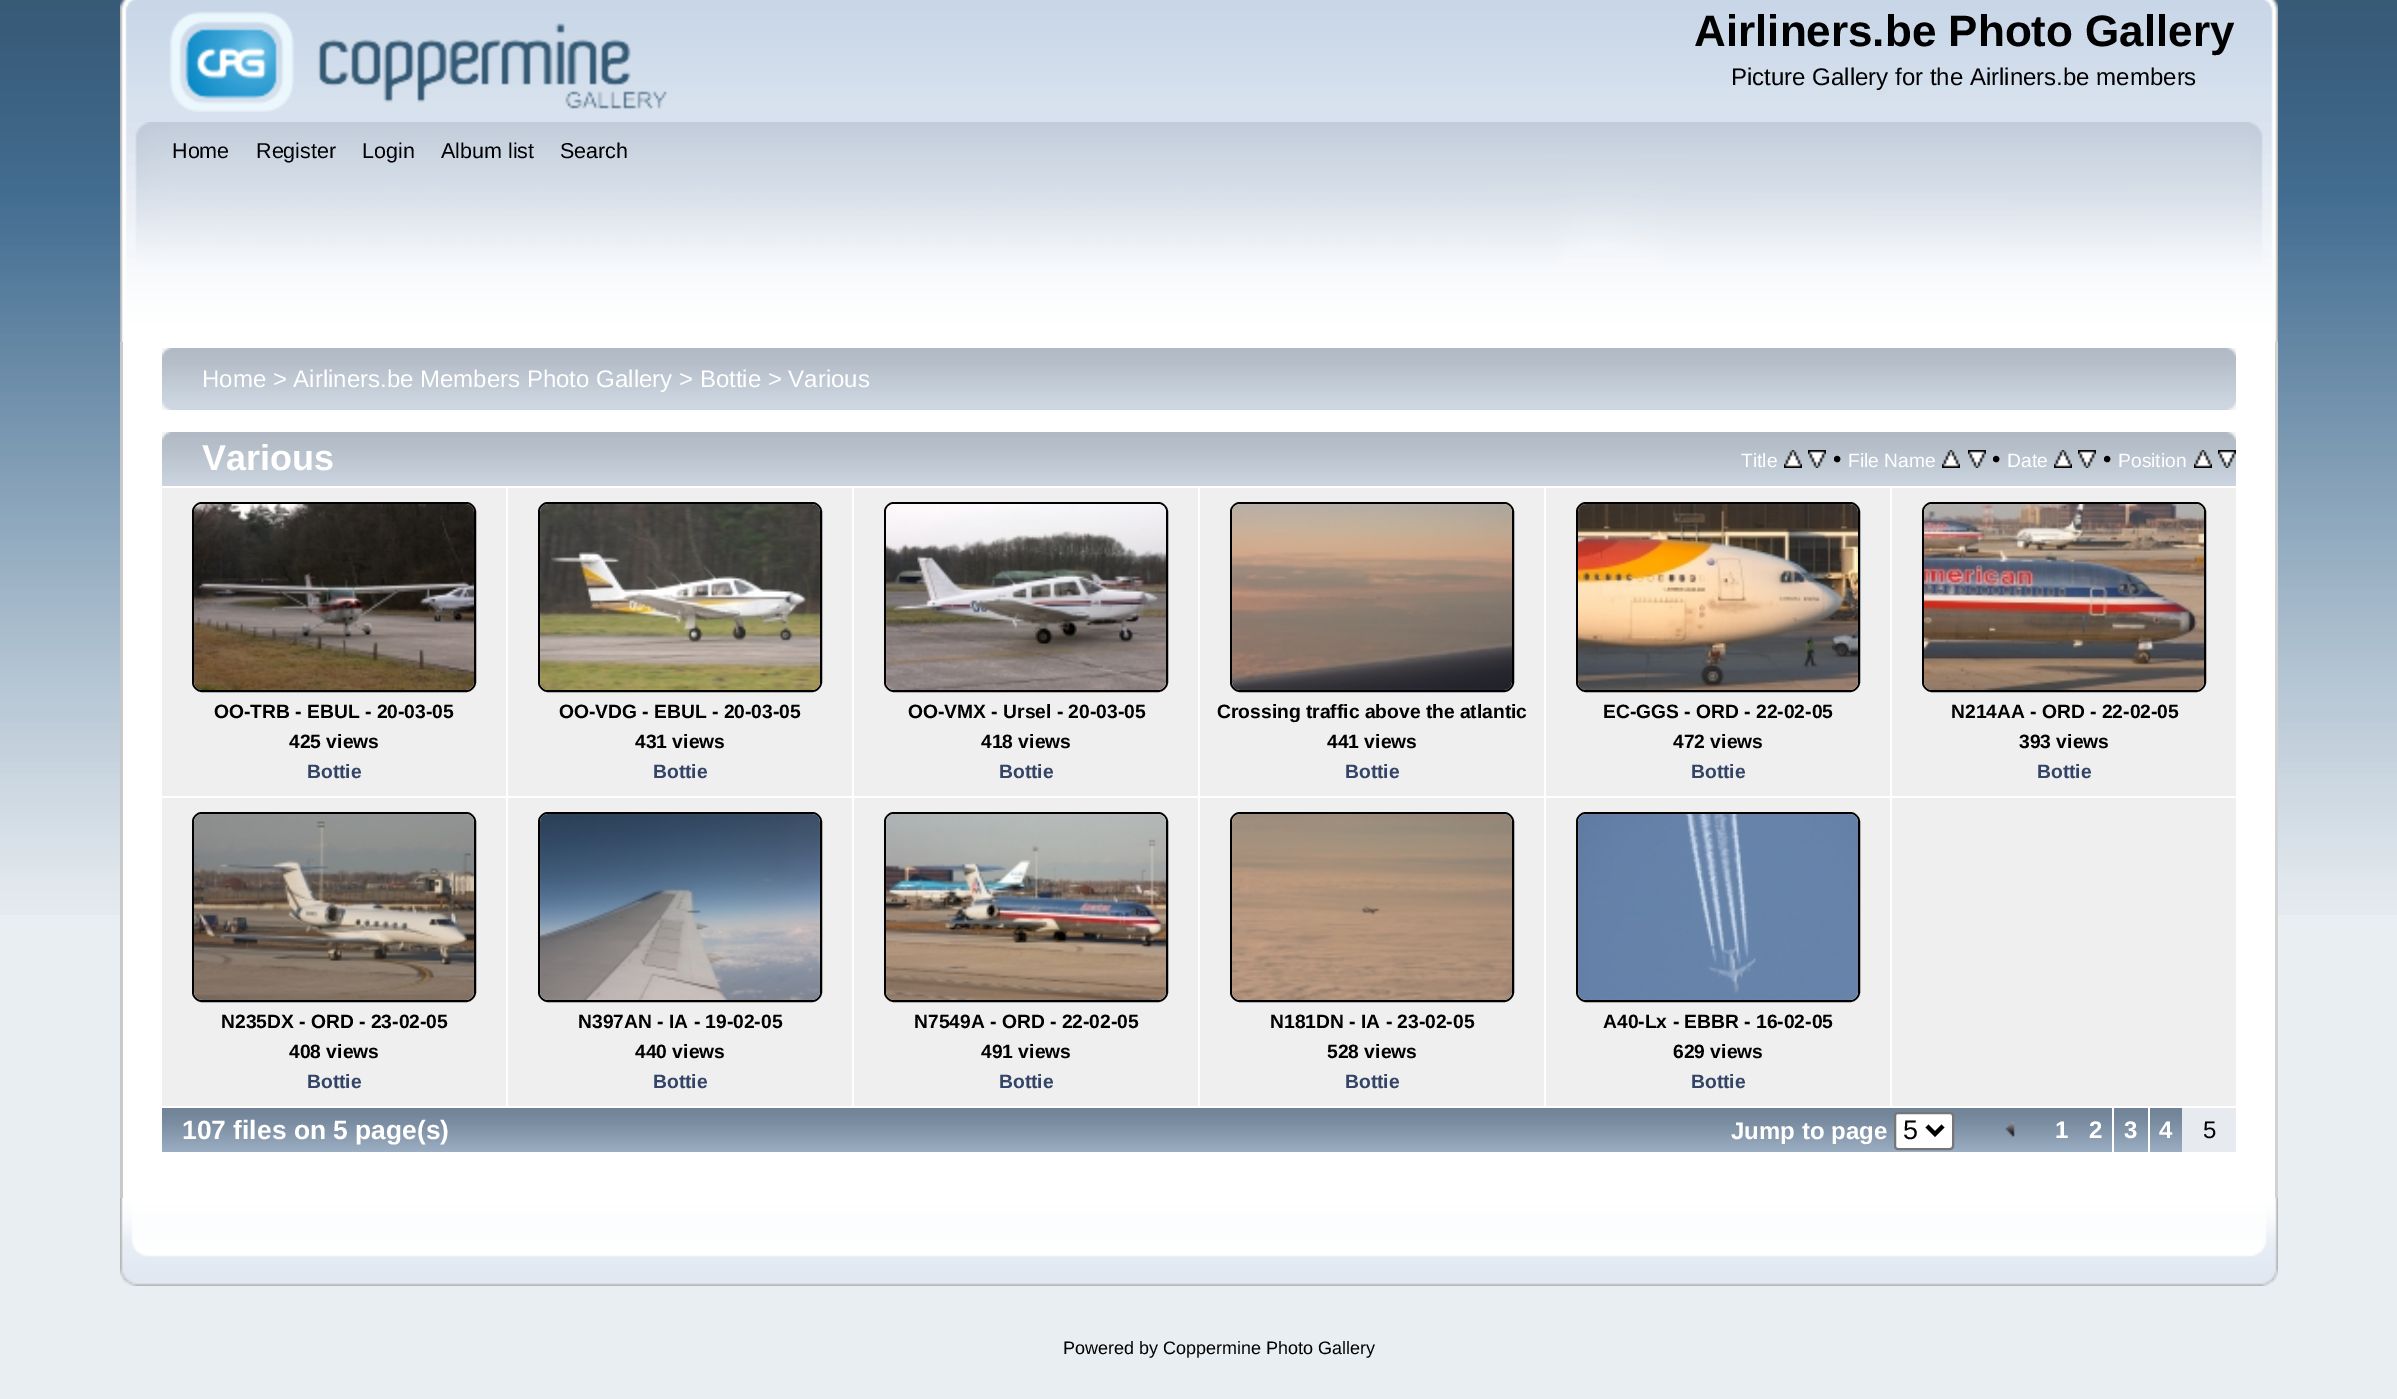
%!PS
<< /PageSize [2397 1399] >> setpagedevice
/rgb { 3 { 255 div 3 1 roll } repeat setrgbcolor } def
/font { [ exch dup neg 0 0 3 -1 roll 0 0 ] selectfont } def
/text { moveto show } def
/roundrect { 5 dict begin { /r /h /w /y /x } { exch def } forall
  x r add y moveto x w add y 2 copy h add r arct x w add y h add x 1 index r arct
  x y h add x y r arct x y 2 copy exch w add exch r arct closepath end } def
/picture { 5 dict begin { /h /w /y /x /name } { exch def } forall
  gsave x y translate w h scale
  w h 8 [w 0 0 h 0 0] name (r) file false 3 colorimage grestore end } def
0 1399 translate 1 -1 scale
4 setmiterlimit
233 238 242 rgb
0 0 2397 1399 rectfill
(img_01.rgb) 0 0 2397 915 picture
(img_02.rgb) 120 0 2143 122 picture
(img_03.rgb) 2263 0 15 122 picture
(img_04.rgb) 169 11 498 101 picture
(img_05.rgb) 120 122 2129 220 picture
(img_06.rgb) 2249 122 29 220 picture
255 255 255 rgb
123 342 2152 856 rectfill
201 201 201 rgb
120 342 3 856 rectfill
210 210 210 rgb
2275 342 3 856 rectfill
(img_07.rgb) 162 348 2065 62 picture
(img_08.rgb) 2227 348 9 62 picture
(img_09.rgb) 162 432 2074 54 picture
(img_10.rgb) 2227 432 9 9 picture
(img_11.rgb) 1784 450 18 18 picture
(img_12.rgb) 1808 450 18 18 picture
(img_11.rgb) 1942 450 18 18 picture
(img_12.rgb) 1968 450 18 18 picture
(img_11.rgb) 2054 450 18 18 picture
(img_12.rgb) 2078 450 18 18 picture
(img_11.rgb) 2194 450 18 18 picture
(img_12.rgb) 2218 450 18 18 picture
239 239 239 rgb
162 488 344 308 rectfill
0 0 0 rgb
2 setlinewidth
193 503 282 188 9 roundrect stroke
(img_13.rgb) 194 504 280 186 picture
239 239 239 rgb
508 488 344 308 rectfill
0 0 0 rgb
539 503 282 188 9 roundrect stroke
(img_14.rgb) 540 504 280 186 picture
239 239 239 rgb
854 488 344 308 rectfill
0 0 0 rgb
885 503 282 188 9 roundrect stroke
(img_15.rgb) 886 504 280 186 picture
239 239 239 rgb
1200 488 344 308 rectfill
0 0 0 rgb
1231 503 282 188 9 roundrect stroke
(img_16.rgb) 1232 504 280 186 picture
239 239 239 rgb
1546 488 344 308 rectfill
0 0 0 rgb
1577 503 282 188 9 roundrect stroke
(img_17.rgb) 1578 504 280 186 picture
239 239 239 rgb
1892 488 344 308 rectfill
0 0 0 rgb
1923 503 282 188 9 roundrect stroke
(img_18.rgb) 1924 504 280 186 picture
239 239 239 rgb
162 798 344 308 rectfill
0 0 0 rgb
193 813 282 188 9 roundrect stroke
(img_19.rgb) 194 814 280 186 picture
239 239 239 rgb
508 798 344 308 rectfill
0 0 0 rgb
539 813 282 188 9 roundrect stroke
(img_20.rgb) 540 814 280 186 picture
239 239 239 rgb
854 798 344 308 rectfill
0 0 0 rgb
885 813 282 188 9 roundrect stroke
(img_21.rgb) 886 814 280 186 picture
239 239 239 rgb
1200 798 344 308 rectfill
0 0 0 rgb
1231 813 282 188 9 roundrect stroke
(img_22.rgb) 1232 814 280 186 picture
239 239 239 rgb
1546 798 344 308 rectfill
0 0 0 rgb
1577 813 282 188 9 roundrect stroke
(img_23.rgb) 1578 814 280 186 picture
239 239 239 rgb
1892 798 344 308 rectfill
(img_24.rgb) 162 1108 1568 44 picture
(img_25.rgb) 1730 1108 244 44 picture
255 255 255 rgb
1895 1113 58 36 3 roundrect gsave fill grestore
118 118 118 rgb
stroke
0 0 0 rgb
4 setlinewidth
1927 1126 moveto 8 8 rlineto 8 -8 rlineto stroke
(img_26.rgb) 1974 1108 72 44 picture
(img_27.rgb) 2005 1121 10 16 picture
(img_28.rgb) 2046 1108 32 44 picture
(img_29.rgb) 2078 1108 34 44 picture
(img_29.rgb) 2114 1108 34 44 picture
(img_28.rgb) 2150 1108 32 44 picture
231 234 239 rgb
2182 1108 54 44 rectfill
(img_30.rgb) 120 1198 2133 88 picture
(img_31.rgb) 2253 1198 25 88 picture
/LiberationSans-Bold 44 font
0 0 0 rgb
(Airliners.be Photo Gallery) 1694 46 text
/LiberationSans-Regular 24 font
(Picture Gallery for the Airliners.be members) 1731 85 text
/LiberationSans-Regular 21.5 font
(Home) 172 158 text
(Register) 256 158 text
(Login) 362 158 text
(Album list) 441 158 text
(Search) 560 158 text
/LiberationSans-Regular 24 font
255 255 255 rgb
(Home > Airliners.be Members Photo Gallery > Bottie > Various) 202 387 text
/LiberationSans-Bold 36 font
(Various) 202 470 text
/LiberationSans-Regular 19.25 font
(Title) 1741 467 text
/LiberationSans-Regular 24 font
0 0 0 rgb
(•) 1833 467 text
/LiberationSans-Regular 19.25 font
255 255 255 rgb
(File Name) 1848 467 text
/LiberationSans-Regular 24 font
0 0 0 rgb
(•) 1992 467 text
/LiberationSans-Regular 19.25 font
255 255 255 rgb
(Date) 2007 467 text
/LiberationSans-Regular 24 font
0 0 0 rgb
(•) 2103 467 text
/LiberationSans-Regular 19.25 font
255 255 255 rgb
(Position) 2118 467 text
/LiberationSans-Bold 19.25 font
0 0 0 rgb
(OO-TRB - EBUL - 20-03-05) 214 718 text
(425 views) 289 748 text
51 68 102 rgb
(Bottie) 307 778 text
0 0 0 rgb
(OO-VDG - EBUL - 20-03-05) 559 718 text
(431 views) 635 748 text
51 68 102 rgb
(Bottie) 653 778 text
0 0 0 rgb
(OO-VMX - Ursel - 20-03-05) 908 718 text
(418 views) 981 748 text
51 68 102 rgb
(Bottie) 999 778 text
0 0 0 rgb
(Crossing traffic above the atlantic) 1217 718 text
(441 views) 1327 748 text
51 68 102 rgb
(Bottie) 1345 778 text
0 0 0 rgb
(EC-GGS - ORD - 22-02-05) 1603 718 text
(472 views) 1673 748 text
51 68 102 rgb
(Bottie) 1691 778 text
0 0 0 rgb
(N214AA - ORD - 22-02-05) 1951 718 text
(393 views) 2019 748 text
51 68 102 rgb
(Bottie) 2037 778 text
0 0 0 rgb
(N235DX - ORD - 23-02-05) 221 1028 text
(408 views) 289 1058 text
51 68 102 rgb
(Bottie) 307 1088 text
0 0 0 rgb
(N397AN - IA - 19-02-05) 578 1028 text
(440 views) 635 1058 text
51 68 102 rgb
(Bottie) 653 1088 text
0 0 0 rgb
(N7549A - ORD - 22-02-05) 914 1028 text
(491 views) 981 1058 text
51 68 102 rgb
(Bottie) 999 1088 text
0 0 0 rgb
(N181DN - IA - 23-02-05) 1270 1028 text
(528 views) 1327 1058 text
51 68 102 rgb
(Bottie) 1345 1088 text
0 0 0 rgb
(A40-Lx - EBBR - 16-02-05) 1603 1028 text
(629 views) 1673 1058 text
51 68 102 rgb
(Bottie) 1691 1088 text
/LiberationSans-Bold 26.4 font
255 255 255 rgb
(107 files on 5 page\(s\)) 182 1139 text
/LiberationSans-Bold 24 font
(Jump to page) 1731 1139 text
/LiberationSans-Regular 27 font
0 0 0 rgb
(5) 1903 1139 text
/LiberationSans-Bold 24 font
255 255 255 rgb
(1) 2055 1138 text
(2) 2089 1138 text
(3) 2124 1138 text
(4) 2159 1138 text
/LiberationSans-Regular 24 font
0 0 0 rgb
(5) 2203 1138 text
/LiberationSans-Regular 18 font
(Powered by Coppermine Photo Gallery) 1063 1354 text
showpage
